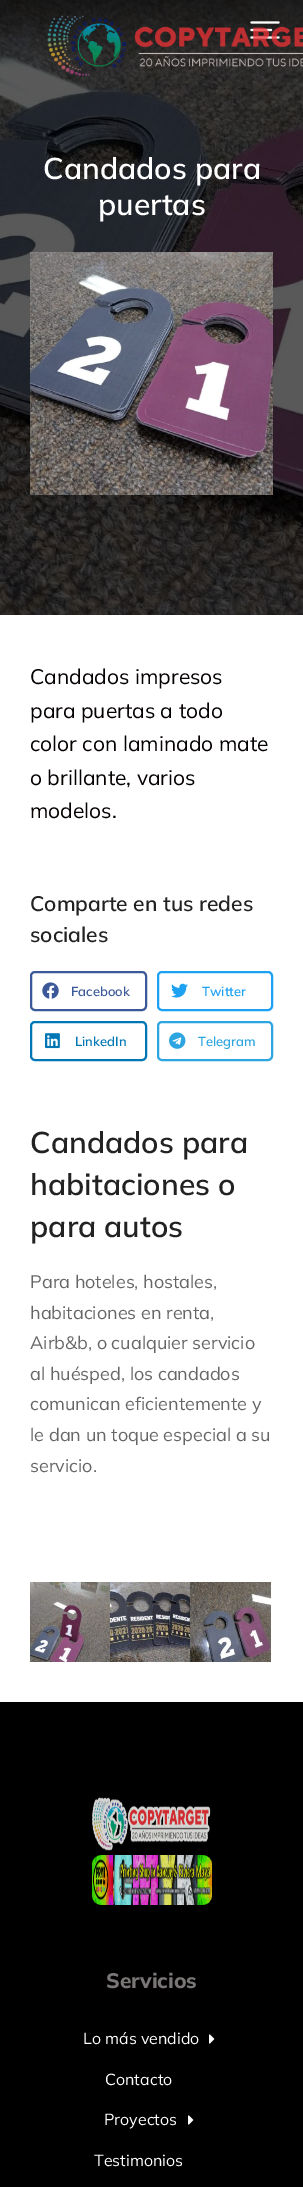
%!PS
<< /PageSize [303 2187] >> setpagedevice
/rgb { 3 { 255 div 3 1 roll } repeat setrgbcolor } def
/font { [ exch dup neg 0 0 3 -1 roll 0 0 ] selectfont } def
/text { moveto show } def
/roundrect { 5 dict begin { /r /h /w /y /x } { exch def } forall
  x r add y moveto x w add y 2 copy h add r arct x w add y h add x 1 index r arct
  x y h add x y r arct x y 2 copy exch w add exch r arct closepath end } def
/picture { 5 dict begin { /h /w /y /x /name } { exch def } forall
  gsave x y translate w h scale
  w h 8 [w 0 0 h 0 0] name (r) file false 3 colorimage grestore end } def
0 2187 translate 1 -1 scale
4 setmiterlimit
255 255 255 rgb
0 0 303 2187 rectfill
(img_03.rgb) 0 0 303 615 picture
(img_02.rgb) 250 21 30 18 picture
(img_01.rgb) 47 15 256 61 picture
(img_04.rgb) 30 252 243 243 picture
59 89 152 rgb
2 setlinewidth
31 972 115 38 4 roundrect stroke
(img_05.rgb) 42 982 17 17 picture
29 161 242 rgb
158 972 114 38 4 roundrect stroke
(img_06.rgb) 171 983 17 15 picture
0 119 181 rgb
31 1022 115 38 4 roundrect stroke
(img_07.rgb) 45 1033 15 16 picture
44 165 224 rgb
158 1022 114 38 4 roundrect stroke
(img_08.rgb) 169 1032 17 17 picture
(img_09.rgb) 30 1582 80 80 picture
(img_10.rgb) 110 1582 80 80 picture
(img_11.rgb) 190 1582 81 80 picture
0 0 0 rgb
0 1702 303 485 rectfill
(img_12.rgb) 92 1797 119 54 picture
(img_13.rgb) 92 1855 120 50 picture
(img_14.rgb) 209 2034 6 10 picture
(img_14.rgb) 188 2115 6 10 picture
/Mulish-SemiBold 30 font
255 255 255 rgb
(Candados para) 43 179 text
(puertas) 98 215 text
/Mulish-Regular 21 font
5 0 0 rgb
(Candados impresos) 30 684 text
(para puertas a todo) 30 718 text
(color con laminado mate) 30 751 text
(o brillante, varios) 30 785 text
(modelos.) 30 818 text
/Mulish-SemiBold 21 font
34 34 34 rgb
(Comparte en tus redes) 30 911 text
(sociales) 30 942 text
/Mulish-SemiBold 13 font
59 89 152 rgb
(Facebook) 71 996 text
29 161 242 rgb
(Twitter) 202 996 text
0 119 181 rgb
(LinkedIn) 75 1046 text
44 165 224 rgb
(Telegram) 198 1046 text
/Mulish-SemiBold 30 font
34 34 34 rgb
(Candados para) 30 1153 text
(habitaciones o) 30 1195 text
(para autos) 30 1237 text
/Mulish-Regular 18 font
102 102 102 rgb
(Para hoteles, hostales,) 30 1288 text
(habitaciones en renta,) 30 1319 text
(Airb&b, o cualquier servicio) 30 1349 text
(al huésped, los candados) 30 1380 text
(comunican eficientemente y) 30 1410 text
(le dan un toque especial a su) 30 1441 text
(servicio.) 30 1472 text
/Mulish-ExtraBold 21 font
122 118 118 rgb
(Servicios) 106 1988 text
/Mulish-Regular 16 font
255 255 255 rgb
(Lo más vendido) 83 2044 text
(Contacto) 105 2085 text
(Proyectos) 104 2125 text
(Testimonios) 94 2166 text
showpage
